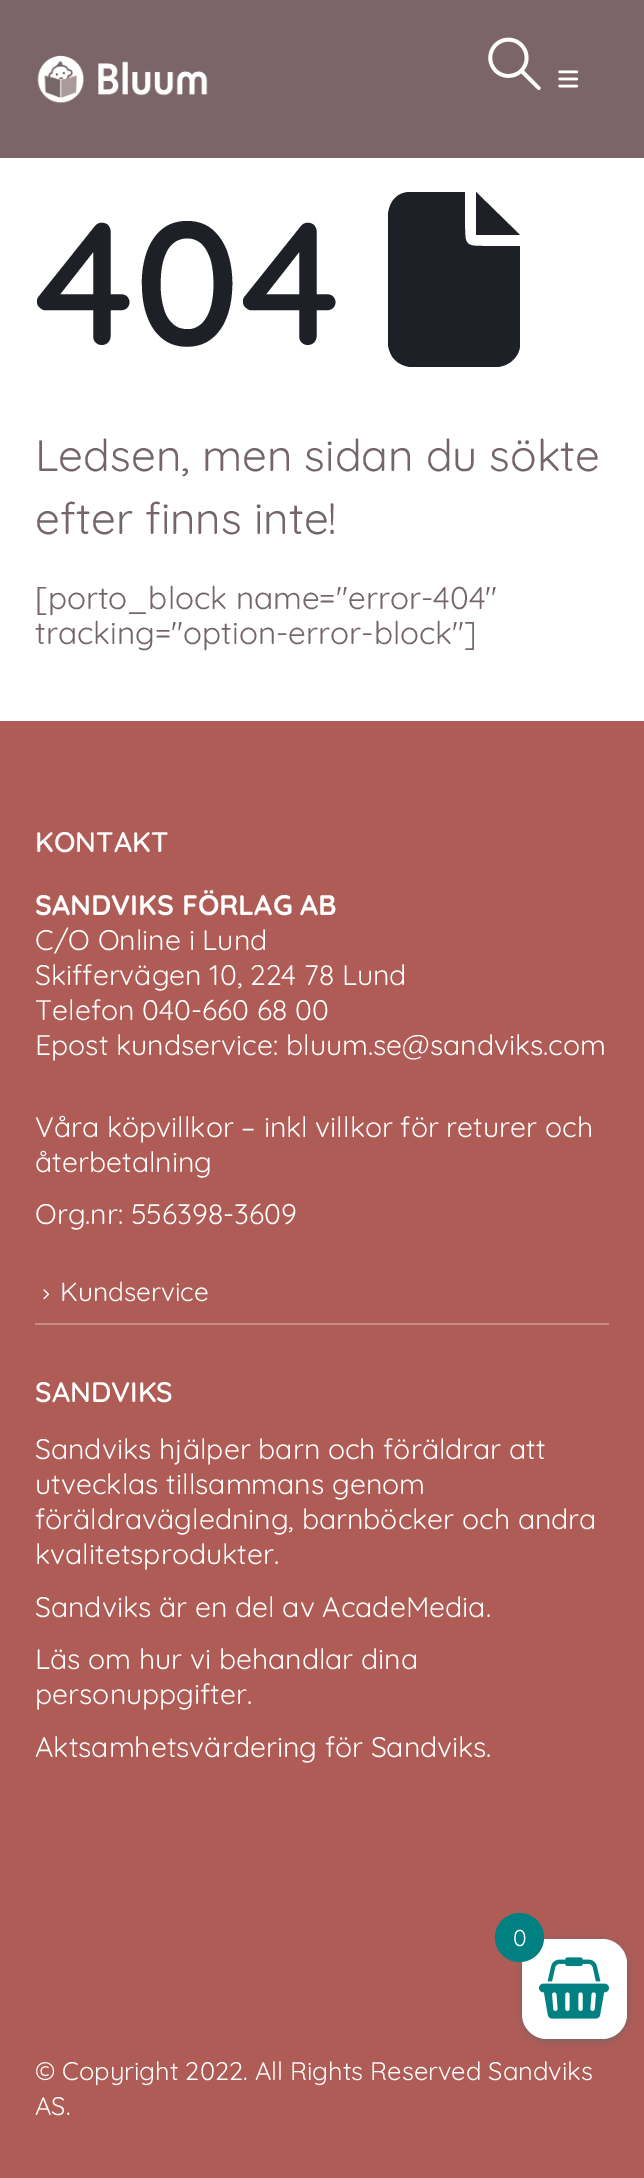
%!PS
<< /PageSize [644 2178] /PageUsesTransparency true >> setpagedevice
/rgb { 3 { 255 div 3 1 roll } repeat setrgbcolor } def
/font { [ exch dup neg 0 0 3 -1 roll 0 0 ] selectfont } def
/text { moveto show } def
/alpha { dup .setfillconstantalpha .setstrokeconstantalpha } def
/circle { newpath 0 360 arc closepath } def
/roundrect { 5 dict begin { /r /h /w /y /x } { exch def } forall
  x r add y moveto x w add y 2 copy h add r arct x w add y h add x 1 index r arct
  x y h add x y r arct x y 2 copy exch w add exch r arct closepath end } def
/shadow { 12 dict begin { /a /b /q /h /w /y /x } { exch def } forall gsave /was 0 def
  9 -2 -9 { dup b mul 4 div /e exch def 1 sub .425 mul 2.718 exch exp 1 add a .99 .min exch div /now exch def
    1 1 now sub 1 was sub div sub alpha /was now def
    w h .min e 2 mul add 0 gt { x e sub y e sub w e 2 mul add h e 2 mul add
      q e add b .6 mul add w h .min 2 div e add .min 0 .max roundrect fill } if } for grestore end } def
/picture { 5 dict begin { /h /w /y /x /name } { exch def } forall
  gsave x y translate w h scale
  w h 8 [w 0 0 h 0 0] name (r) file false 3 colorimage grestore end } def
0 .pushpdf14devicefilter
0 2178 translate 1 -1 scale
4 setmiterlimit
255 255 255 rgb
0 0 644 2178 rectfill
123 101 104 rgb
0 0 644 158 rectfill
(img_01.rgb) 37 55 171 48 picture
(img_02.rgb) 488 37 53 54 picture
(img_03.rgb) 558 70 21 18 picture
29 33 39 rgb
388 214 moveto 1 -7 3 -12 7 -16 rcurveto 4 -4 9 -6 15 -6 rcurveto 55 0 rlineto 0 36 rlineto 0 17 2 18 18 18 rcurveto 37 0 rlineto 0 99 rlineto 0 6 -3 11 -7 15 rcurveto -4 4 -9 6 -15 7 rcurveto -88 0 rlineto -6 -1 -11 -3 -15 -7 rcurveto -4 -4 -6 -9 -7 -15 rcurveto closepath 520 235 moveto -44 0 rlineto 0 -43 rlineto closepath fill
175 92 86 rgb
0 721 644 1457 rectfill
199 141 137 rgb
35 1323 574 2 rectfill
(img_04.rgb) 43 1289 6 11 picture
116 101 104 rgb
522 1941 105 100 25 3.5 1 shadow
255 255 255 rgb
522 1939 105 100 25 roundrect fill
(img_05.rgb) 539 1957 70 62 picture
0 128 128 rgb
519.5 1937.5 24.5 circle fill
/Quicksand-SemiBold 175 font
29 33 39 rgb
(404) 35 345 text
/Quicksand-Regular 44.1 font
116 101 104 rgb
(Ledsen, men sidan du sökte) 35 471 text
(efter finns inte!) 35 534 text
/Quicksand-Regular 31.5 font
([porto_block name="error-404") 35 609 text
(tracking="option-error-block"]) 35 644 text
/Quicksand-SemiBold 28.35 font
255 255 255 rgb
(KONTAKT) 35 852 text
/Quicksand-Bold 28.35 font
(SANDVIKS FÖRLAG AB) 35 915 text
/Quicksand-Regular 28.35 font
(C/O Online i Lund) 35 950 text
(Skiffervägen 10, 224 78 Lund) 35 985 text
(Telefon 040-660 68 00) 35 1020 text
(Epost kundservice: bluum.se@sandviks.com) 35 1055 text
(Våra köpvillkor – inkl villkor för returer och) 35 1137 text
(återbetalning) 35 1172 text
(Org.nr: 556398-3609) 35 1224 text
/Quicksand-Regular 26.25 font
(Kundservice) 60 1301 text
/Quicksand-SemiBold 28.35 font
(SANDVIKS) 35 1402 text
/Quicksand-Regular 28.35 font
(Sandviks hjälper barn och föräldrar att) 35 1459 text
(utvecklas tillsammans genom) 35 1494 text
(föräldravägledning, barnböcker och andra) 35 1529 text
(kvalitetsprodukter.) 35 1564 text
(Sandviks är en del av AcadeMedia.) 35 1617 text
(Läs om hur vi behandlar dina) 35 1669 text
(personuppgifter.) 35 1704 text
(Aktsamhetsvärdering för Sandviks) 35 1757 text
(.) 486 1757 text
/Quicksand-Regular 25.5 font
(© Copyright 2022. All Rights Reserved Sandviks) 35 2080 text
(AS.) 35 2115 text
/Quicksand-Regular 23 font
(0) 513 1946 text
.poppdf14devicefilter showpage
